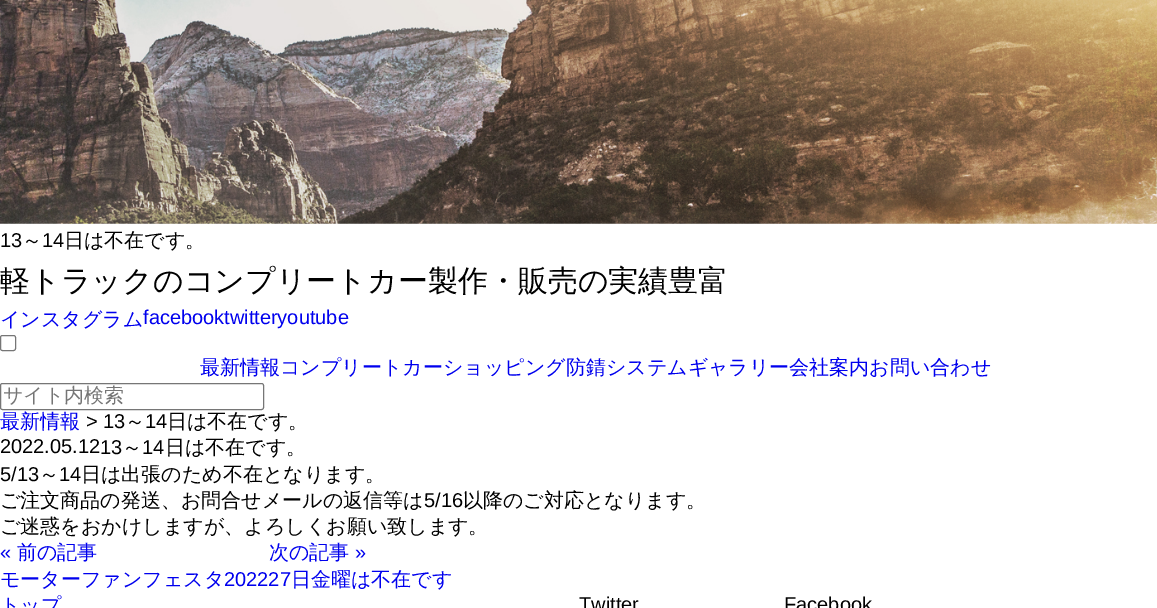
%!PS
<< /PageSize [1157 608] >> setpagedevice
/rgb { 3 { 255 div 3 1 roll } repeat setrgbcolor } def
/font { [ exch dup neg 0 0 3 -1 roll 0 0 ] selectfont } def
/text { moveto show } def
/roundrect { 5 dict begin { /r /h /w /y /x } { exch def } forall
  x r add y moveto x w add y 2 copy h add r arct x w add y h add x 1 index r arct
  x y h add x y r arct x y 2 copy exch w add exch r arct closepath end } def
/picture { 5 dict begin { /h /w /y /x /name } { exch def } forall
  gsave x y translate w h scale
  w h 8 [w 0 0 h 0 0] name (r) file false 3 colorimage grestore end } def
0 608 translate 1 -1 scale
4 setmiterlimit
255 255 255 rgb
0 0 1157 608 rectfill
(img_01.rgb) 0 0 1157 224 picture
118 118 118 rgb
0.5 335.5 15 15 2 roundrect stroke
0.5 383.5 263 26 2 roundrect stroke
/LiberationSans-Regular 20 font
0 0 0 rgb
(13) 0 247 text
/WenQuanYiZenHei-Medium 20 font
(～) 22 247 text
/LiberationSans-Regular 20 font
(14) 42 247 text
/WenQuanYiZenHei-Medium 20 font
(日は不在です。) 64 247 text
/WenQuanYiZenHei-Medium 30 font
(軽トラックのコンプリートカー製作・販売の実績豊富) 0 291 text
/WenQuanYiZenHei-Medium 20 font
0 0 238 rgb
(インスタグラム) 0 326 text
/LiberationSans-Regular 20 font
(facebooktwitteryoutube) 143 324 text
/WenQuanYiZenHei-Medium 20 font
(最新情報コンプリートカーショッピング防錆システムギャラリー会社案内お問い合わせ) 200 374 text
117 117 117 rgb
(サイト内検索) 3 402 text
0 0 238 rgb
(最新情報) 0 428 text
/LiberationSans-Regular 20 font
0 0 0 rgb
(> 13) 86 428 text
/WenQuanYiZenHei-Medium 20 font
(～) 125 428 text
/LiberationSans-Regular 20 font
(14) 145 428 text
/WenQuanYiZenHei-Medium 20 font
(日は不在です。) 167 428 text
/LiberationSans-Regular 20 font
(2022.05.12) 0 453 text
(13) 100 454 text
/WenQuanYiZenHei-Medium 20 font
(～) 122 454 text
/LiberationSans-Regular 20 font
(14) 142 454 text
/WenQuanYiZenHei-Medium 20 font
(日は不在です。) 165 454 text
/LiberationSans-Regular 20 font
(5/13) 0 481 text
/WenQuanYiZenHei-Medium 20 font
(～) 39 481 text
/LiberationSans-Regular 20 font
(14) 59 481 text
/WenQuanYiZenHei-Medium 20 font
(日は出張のため不在となります。) 81 481 text
(ご注文商品の発送、お問合せメールの返信等は) 0 507 text
/LiberationSans-Regular 20 font
(5/16) 424 507 text
/WenQuanYiZenHei-Medium 20 font
(以降のご対応となります。) 463 507 text
(ご迷惑をおかけしますが、よろしくお願い致します。) 0 533 text
/LiberationSans-Regular 20 font
0 0 238 rgb
(«) 0 559 text
/WenQuanYiZenHei-Medium 20 font
(前の記事) 17 559 text
(モーターファンフェスタ) 0 586 text
/LiberationSans-Regular 20 font
(202227) 224 586 text
/WenQuanYiZenHei-Medium 20 font
(次の記事) 269 559 text
/LiberationSans-Regular 20 font
(») 355 559 text
/WenQuanYiZenHei-Medium 20 font
(日金曜は不在です) 291 586 text
(トップ) 0 612 text
/LiberationSans-Regular 20 font
0 0 0 rgb
(Twitter) 579 611 text
(Facebook) 784 611 text
showpage
